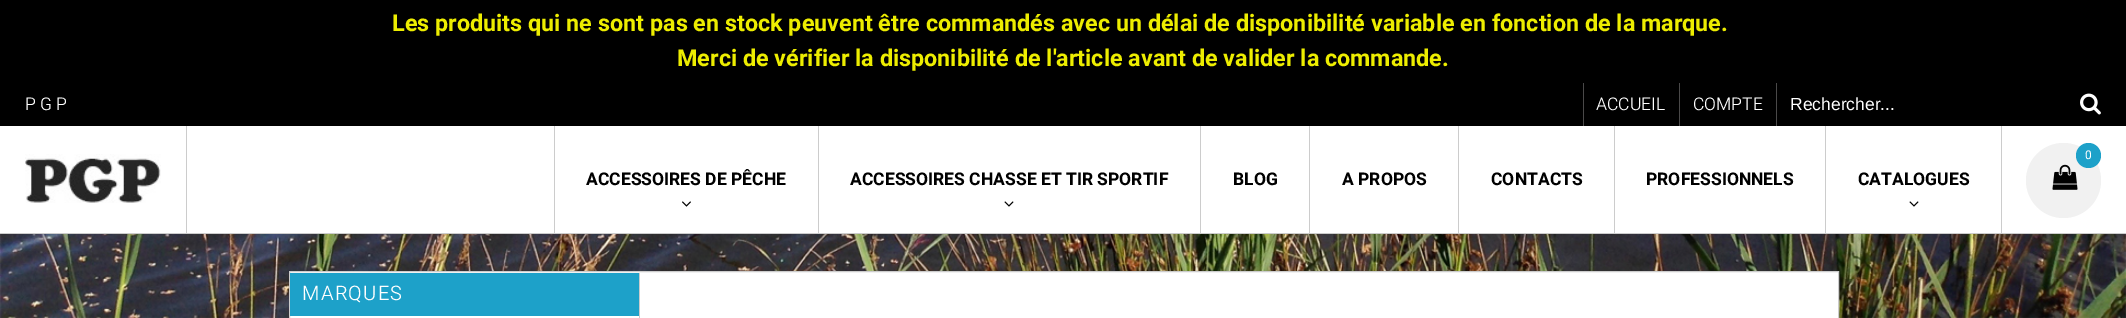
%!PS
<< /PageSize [2126 318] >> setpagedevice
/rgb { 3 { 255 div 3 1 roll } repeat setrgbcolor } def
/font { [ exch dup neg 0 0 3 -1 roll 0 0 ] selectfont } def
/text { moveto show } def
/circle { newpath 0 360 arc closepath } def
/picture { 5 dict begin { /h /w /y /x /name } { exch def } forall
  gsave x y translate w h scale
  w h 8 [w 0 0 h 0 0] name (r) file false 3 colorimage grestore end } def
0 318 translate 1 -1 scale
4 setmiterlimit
255 255 255 rgb
0 0 2126 318 rectfill
(img_01.rgb) 0 234 2126 84 picture
0 0 0 rgb
0 0 2126 126 rectfill
204 204 204 rgb
0 233 2126 1 rectfill
74 73 73 rgb
1583 83 1 43 rectfill
1679 83 1 43 rectfill
1776 83 1 43 rectfill
(img_02.rgb) 2080 93 21 22 picture
204 204 204 rgb
186 126 1 107 rectfill
(img_03.rgb) 25 154 136 49 picture
2001 126 1 107 rectfill
241 241 241 rgb
2063.5 180.5 37.5 circle fill
29 161 201 rgb
2088.5 155.5 12.5 circle fill
(img_04.rgb) 2052 164 26 26 picture
204 204 204 rgb
554 126 1 107 rectfill
(img_05.rgb) 682 201 9 6 picture
818 126 1 107 rectfill
(img_06.rgb) 1004 201 10 6 picture
1200 126 1 107 rectfill
1309 126 1 107 rectfill
1458 126 1 107 rectfill
1614 126 1 107 rectfill
1825 126 1 107 rectfill
(img_06.rgb) 1909 201 10 6 picture
255 255 255 rgb
289.5 271.5 moveto 1549 0 rlineto 0 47 rlineto -1549 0 rlineto closepath gsave fill grestore
204 204 204 rgb
stroke
639 273 1 45 rectfill
29 161 201 rgb
290 273 349 43 rectfill
/Heebo-Bold 23.33 font
237 237 0 rgb
(Les produits qui ne sont pas en stock peuvent être commandés avec un délai de disponibilité variable en fonction de la marque.) 392 31 text
(Merci de vérifier la disponibilité de l'article avant de valider la commande.) 677 66 text
/Heebo-Light 17.5 font
255 255 255 rgb
25 110 moveto 4 0 (PGP) ashow
(ACCUEIL) 1596 110 text
(COMPTE) 1693 110 text
/LiberationSans-Regular 17.5 font
(Rechercher...) 1790 110 text
/Heebo-Regular 12 font
(0) 2085 159 text
/Heebo-Bold 17.5 font
0 0 0 rgb
(ACCESSOIRES DE PÊCHE) 586 185 text
(ACCESSOIRES CHASSE ET TIR SPORTIF) 850 185 text
(BLOG) 1233 185 text
(A PROPOS) 1342 185 text
(CONTACTS) 1491 185 text
(PROFESSIONNELS) 1646 185 text
(CATALOGUES) 1858 185 text
/Heebo-Light 20 font
255 255 255 rgb
302 300 moveto 1.25 0 (MARQUES) ashow
showpage
